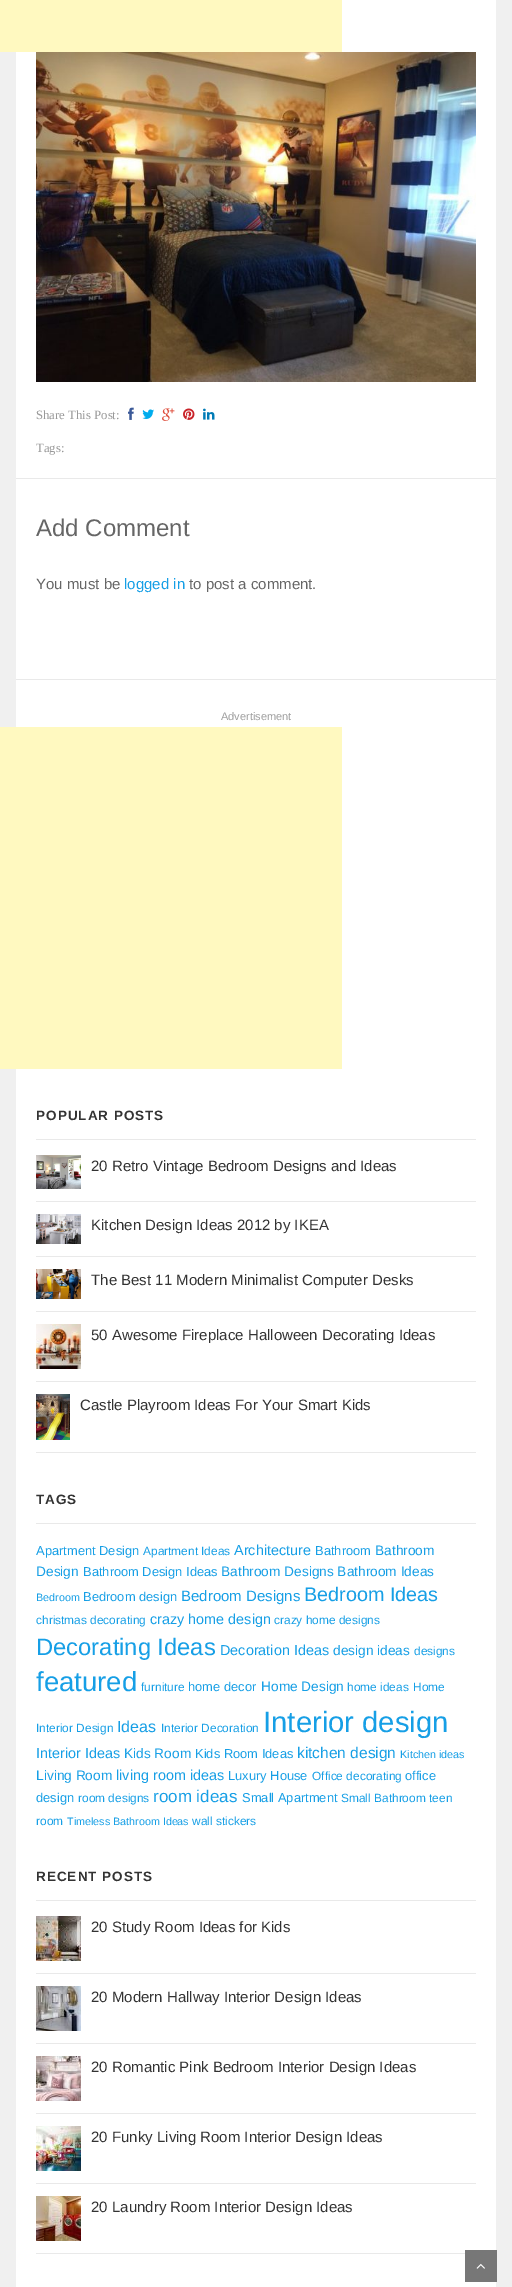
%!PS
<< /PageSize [512 2287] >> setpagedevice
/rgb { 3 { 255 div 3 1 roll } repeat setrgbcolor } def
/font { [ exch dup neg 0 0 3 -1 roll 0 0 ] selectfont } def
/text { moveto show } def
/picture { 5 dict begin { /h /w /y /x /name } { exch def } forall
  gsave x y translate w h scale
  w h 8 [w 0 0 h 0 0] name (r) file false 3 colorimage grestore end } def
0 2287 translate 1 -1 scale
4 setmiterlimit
240 240 240 rgb
0 0 512 2287 rectfill
255 255 255 rgb
16 0 480 2287 rectfill
233 233 233 rgb
16 478 480 1 rectfill
255 249 192 rgb
0 0 342 52 rectfill
(img_01.rgb) 36 52 440 330 picture
(img_02.rgb) 128 407 6 13 picture
(img_03.rgb) 142 409 12 10 picture
(img_04.rgb) 162 408 13 13 picture
(img_05.rgb) 183 408 12 12 picture
(img_06.rgb) 203 408 12 12 picture
233 233 233 rgb
16 679 480 1 rectfill
255 249 192 rgb
0 727 342 342 rectfill
233 233 233 rgb
36 1139 440 1 rectfill
36 1201 440 1 rectfill
(img_07.rgb) 36 1155 45 34 picture
36 1256 440 1 rectfill
(img_08.rgb) 36 1214 45 30 picture
36 1311 440 1 rectfill
(img_09.rgb) 36 1269 45 30 picture
36 1381 440 1 rectfill
(img_10.rgb) 36 1324 45 45 picture
36 1452 440 1 rectfill
(img_11.rgb) 36 1394 34 46 picture
36 1523 440 1 rectfill
36 1900 440 1 rectfill
36 1973 440 1 rectfill
(img_12.rgb) 36 1916 45 45 picture
36 2043 440 1 rectfill
(img_13.rgb) 36 1986 45 45 picture
36 2113 440 1 rectfill
(img_14.rgb) 36 2056 45 45 picture
36 2183 440 1 rectfill
(img_15.rgb) 36 2126 45 45 picture
36 2253 429 1 rectfill
(img_16.rgb) 36 2196 45 45 picture
119 119 119 rgb
465 2250 32 32 rectfill
(img_17.rgb) 476 2263 9 6 picture
/LiberationSerif-Regular 12.75 font
153 153 153 rgb
(Share This Post:) 36 419 text
(Tags:) 36 452 text
/LiberationSans-Regular 24 font
102 102 102 rgb
(Add Comment) 36 536 text
/LiberationSans-Regular 15 font
(You must be) 36 589 text
22 159 230 rgb
(logged in) 124 589 text
102 102 102 rgb
(to post a comment.) 189 589 text
/LiberationSans-Regular 11 font
159 159 159 rgb
(Advertisement) 221 720 text
/LiberationSans-Bold 13.5 font
51 51 51 rgb
36 1120 moveto 1 0 (POPULAR POSTS) ashow
/LiberationSans-Regular 15 font
(20 Retro Vintage Bedroom Designs and Ideas) 91 1171 text
(Kitchen Design Ideas 2012 by IKEA) 91 1230 text
(The Best 11 Modern Minimalist Computer Desks) 91 1285 text
(50 Awesome Fireplace Halloween Decorating Ideas) 91 1340 text
(Castle Playroom Ideas For Your Smart Kids) 80 1410 text
/LiberationSans-Bold 13.5 font
36 1504 moveto 1 0 (TAGS) ashow
/LiberationSans-Regular 12.9 font
22 159 230 rgb
(Apartment Design) 36 1555 text
/LiberationSans-Regular 11.9 font
(Apartment Ideas) 143 1555 text
/LiberationSans-Regular 14.4 font
(Architecture) 234 1555 text
/LiberationSans-Regular 12.9 font
(Bathroom) 315 1555 text
/LiberationSans-Regular 13.7 font
(Bathroom) 375 1555 text
(Design) 36 1576 text
/LiberationSans-Regular 12.9 font
(Bathroom Design Ideas) 83 1576 text
/LiberationSans-Regular 13.7 font
(Bathroom Designs Bathroom Ideas) 221 1576 text
/LiberationSans-Regular 10.75 font
(Bedroom) 36 1601 text
/LiberationSans-Regular 12.9 font
(Bedroom design) 83 1601 text
/LiberationSans-Regular 15 font
(Bedroom Designs) 181 1601 text
/LiberationSans-Regular 19.75 font
(Bedroom Ideas) 304 1601 text
/LiberationSans-Regular 11.9 font
(christmas decorating) 36 1624 text
/LiberationSans-Regular 14.4 font
(crazy home design) 150 1624 text
/LiberationSans-Regular 11.9 font
(crazy home designs) 274 1624 text
/LiberationSans-Regular 23.75 font
(Decorating Ideas) 36 1655 text
/LiberationSans-Regular 14.4 font
(Decoration Ideas) 220 1655 text
/LiberationSans-Regular 13.7 font
(design ideas) 333 1655 text
/LiberationSans-Regular 11.9 font
(designs) 414 1655 text
/LiberationSans-Regular 27.5 font
(featured) 36 1691 text
/LiberationSans-Regular 11.9 font
(furniture) 141 1691 text
/LiberationSans-Regular 12.9 font
(home decor) 188 1691 text
/LiberationSans-Regular 13.7 font
(Home Design) 261 1691 text
/LiberationSans-Regular 11.9 font
(home ideas) 347 1691 text
(Home) 413 1691 text
(Interior Design) 36 1732 text
/LiberationSans-Regular 16 font
(Ideas) 117 1732 text
/LiberationSans-Regular 11.9 font
(Interior Decoration) 161 1732 text
/LiberationSans-Regular 29.25 font
(Interior design) 263 1732 text
/LiberationSans-Regular 14.4 font
(Interior Ideas) 36 1758 text
/LiberationSans-Regular 13.7 font
(Kids Room) 124 1758 text
/LiberationSans-Regular 12.9 font
(Kids Room Ideas) 195 1758 text
/LiberationSans-Regular 15.5 font
(kitchen design) 297 1758 text
/LiberationSans-Regular 10.75 font
(Kitchen ideas) 400 1758 text
/LiberationSans-Regular 13.7 font
(Living Room) 36 1780 text
/LiberationSans-Regular 14.4 font
(living room ideas) 116 1780 text
/LiberationSans-Regular 12.9 font
(Luxury House) 228 1780 text
/LiberationSans-Regular 11.9 font
(Office decorating) 312 1780 text
/LiberationSans-Regular 12.9 font
(office) 405 1780 text
(design) 36 1802 text
/LiberationSans-Regular 11.9 font
(room designs) 78 1802 text
/LiberationSans-Regular 17 font
(room ideas) 153 1802 text
/LiberationSans-Regular 12.9 font
(Small Apartment) 242 1802 text
/LiberationSans-Regular 11.9 font
(Small Bathroom) 341 1802 text
(teen) 429 1802 text
(room) 36 1825 text
/LiberationSans-Regular 10.75 font
(Timeless Bathroom Ideas) 67 1825 text
/LiberationSans-Regular 11.9 font
(wall stickers) 192 1825 text
/LiberationSans-Bold 13.5 font
51 51 51 rgb
36 1881 moveto 1 0 (RECENT POSTS) ashow
/LiberationSans-Regular 15 font
(20 Study Room Ideas for Kids) 91 1932 text
(20 Modern Hallway Interior Design Ideas) 91 2002 text
(20 Romantic Pink Bedroom Interior Design Ideas) 91 2072 text
(20 Funky Living Room Interior Design Ideas) 91 2142 text
(20 Laundry Room Interior Design Ideas) 91 2212 text
showpage
